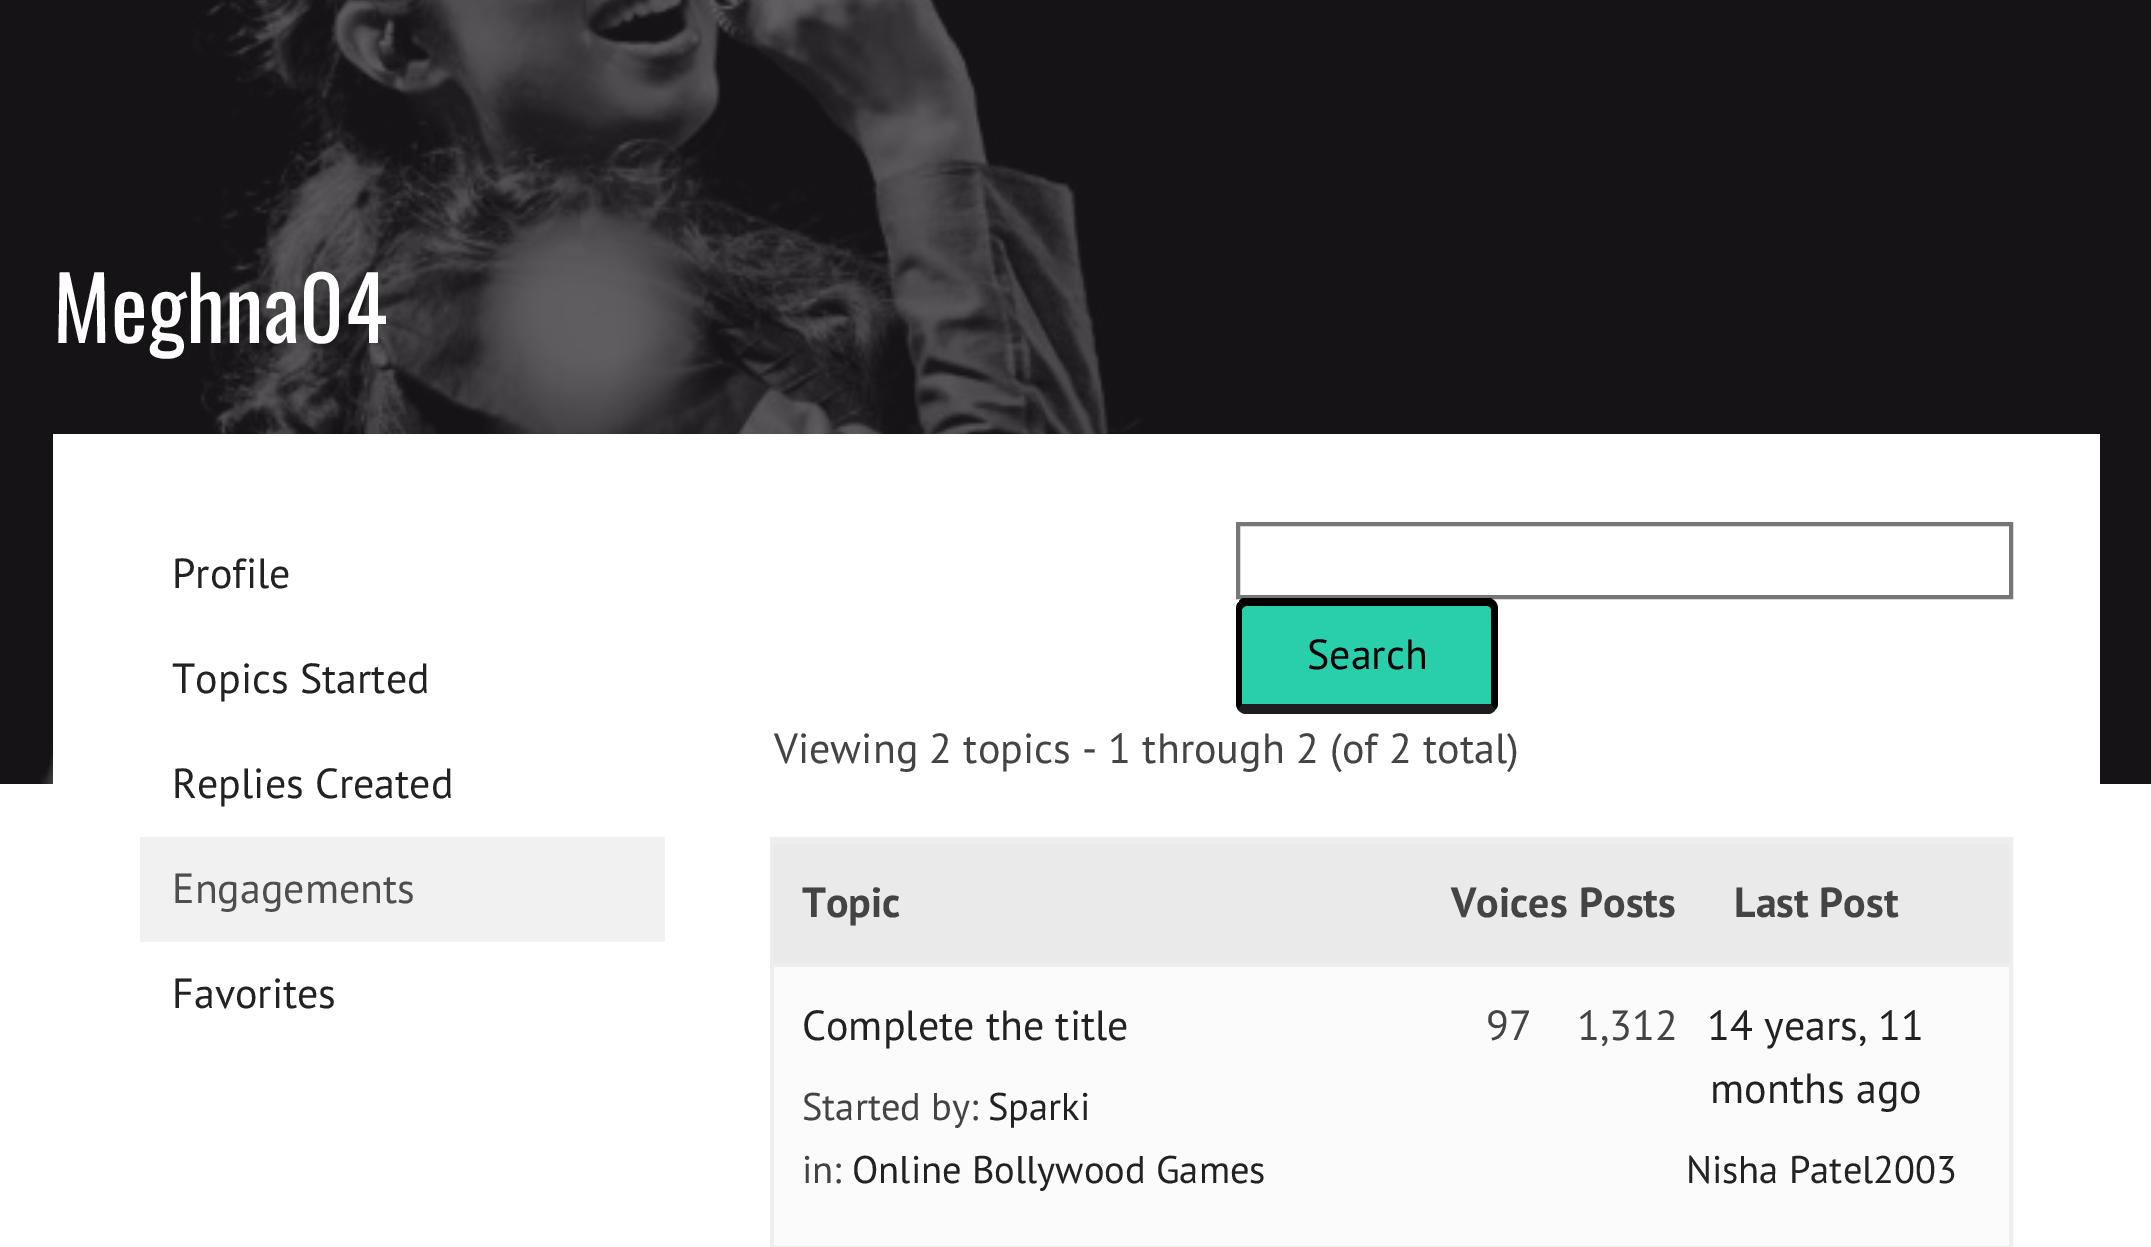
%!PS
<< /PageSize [2151 1247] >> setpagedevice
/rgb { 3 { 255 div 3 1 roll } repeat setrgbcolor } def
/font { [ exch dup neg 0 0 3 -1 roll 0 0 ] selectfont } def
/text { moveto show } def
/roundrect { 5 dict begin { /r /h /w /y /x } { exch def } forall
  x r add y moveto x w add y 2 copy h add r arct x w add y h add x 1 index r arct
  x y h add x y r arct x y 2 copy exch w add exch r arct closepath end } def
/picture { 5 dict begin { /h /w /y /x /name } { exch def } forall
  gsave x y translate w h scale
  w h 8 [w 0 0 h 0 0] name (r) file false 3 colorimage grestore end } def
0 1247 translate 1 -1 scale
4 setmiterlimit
255 255 255 rgb
0 0 2151 1247 rectfill
22 19 22 rgb
0 0 2151 784 rectfill
(img_01.rgb) 39 0 1123 784 picture
255 255 255 rgb
53 434 2047 350 rectfill
241 241 241 rgb
140 837 525 105 rectfill
119 119 119 rgb
4 setlinewidth
1238 524 773 73 rectstroke
41 206 170 rgb
1236 599 262 115 11 roundrect fill
0 0 0 rgb
1246 606 moveto -2 1 rlineto -5 -5 rlineto 0 -2 2 -3 4 -4 rcurveto 248 0 rlineto 4 3 rlineto -5 6 rlineto -2 -1 rlineto closepath fill
1498 704 moveto 0 -95 rlineto 0 -3 -1 -6 -3 -8 rcurveto -5 6 rlineto 1 2 rlineto 0 95 rlineto 4 6 rlineto 2 -2 3 -4 3 -6 rcurveto closepath fill
31 27 32 rgb
1246 714 moveto 242 0 rlineto 3 0 6 -2 7 -4 rcurveto -4 -6 rlineto -249 0 rlineto -4 6 rlineto 2 2 5 4 8 4 rcurveto closepath fill
0 0 0 rgb
1238 710 moveto -1 -2 -2 -4 -2 -6 rcurveto 0 -95 rlineto 0 -3 1 -6 3 -7 rcurveto 5 5 rlineto -2 2 rlineto 0 95 rlineto closepath fill
238 238 238 rgb
772 839 1239 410 rectstroke
234 234 234 rgb
774 844 1235 119 rectfill
238 238 238 rgb
774 841 1235 3 rectfill
251 251 251 rgb
774 967 1235 279 rectfill
238 238 238 rgb
774 963 1235 4 rectfill
774 1246 1235 1 rectfill
/Oswald-Regular 87.5 font
255 255 255 rgb
(Meghna04) 53 343 text
/PTSans-Regular 42 font
34 34 34 rgb
(Profile) 172 588 text
(Topics Started) 172 693 text
(Replies Created) 172 798 text
78 78 78 rgb
(Engagements) 172 903 text
34 34 34 rgb
(Favorites) 172 1008 text
0 0 0 rgb
(Search) 1307 669 text
68 68 68 rgb
(Viewing 2 topics - 1 through 2 \(of 2 total\)) 774 763 text
/PTSans-Bold 42 font
(Topic) 802 917 text
(Voices) 1451 917 text
(Posts) 1579 917 text
(Last Post) 1734 917 text
/PTSans-Regular 42 font
34 34 34 rgb
(Complete the title) 802 1040 text
/PTSans-Regular 38.5 font
68 68 68 rgb
(Started by:) 802 1120 text
34 34 34 rgb
(Sparki) 988 1120 text
68 68 68 rgb
(in:) 802 1183 text
34 34 34 rgb
(Online Bollywood Games) 852 1183 text
/PTSans-Regular 42 font
68 68 68 rgb
(97) 1486 1040 text
(1,312) 1577 1040 text
34 34 34 rgb
(14 years, 11) 1707 1040 text
(months ago) 1710 1103 text
/PTSans-Regular 38.5 font
(Nisha Patel2003) 1686 1183 text
showpage
